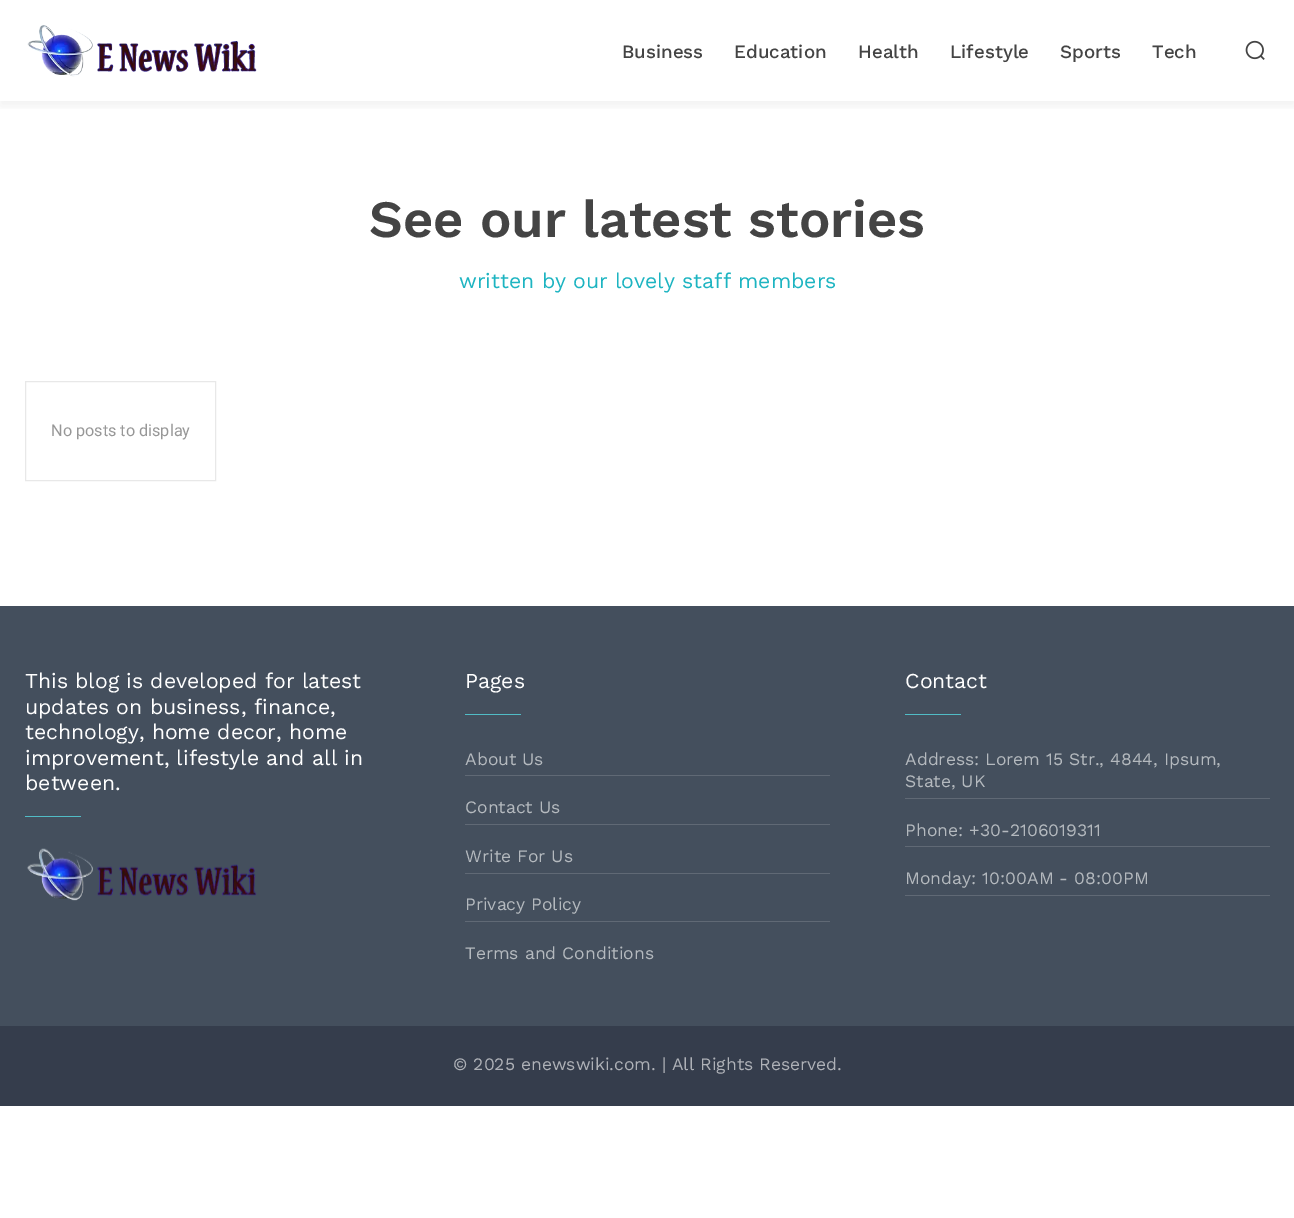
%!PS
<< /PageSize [1294 1218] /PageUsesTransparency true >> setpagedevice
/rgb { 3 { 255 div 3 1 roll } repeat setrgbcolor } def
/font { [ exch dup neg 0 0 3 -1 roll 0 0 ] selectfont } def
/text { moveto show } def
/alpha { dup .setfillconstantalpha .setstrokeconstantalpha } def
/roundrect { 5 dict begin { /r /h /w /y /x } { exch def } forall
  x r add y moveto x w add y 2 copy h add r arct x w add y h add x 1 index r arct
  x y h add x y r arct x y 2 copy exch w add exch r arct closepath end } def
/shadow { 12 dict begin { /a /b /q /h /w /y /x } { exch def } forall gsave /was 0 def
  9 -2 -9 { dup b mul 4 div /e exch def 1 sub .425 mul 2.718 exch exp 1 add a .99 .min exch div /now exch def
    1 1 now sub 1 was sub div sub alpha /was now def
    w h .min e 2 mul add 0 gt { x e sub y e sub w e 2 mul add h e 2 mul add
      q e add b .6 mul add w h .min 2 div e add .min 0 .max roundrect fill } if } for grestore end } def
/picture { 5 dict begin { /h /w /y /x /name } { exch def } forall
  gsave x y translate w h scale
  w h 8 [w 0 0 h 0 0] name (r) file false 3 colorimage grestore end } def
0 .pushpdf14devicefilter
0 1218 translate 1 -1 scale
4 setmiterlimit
255 255 255 rgb
0 0 1294 1218 rectfill
(img_01.rgb) 27 25 230 52 picture
gsave
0 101 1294 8 rectclip
0 0 0 rgb
0 5 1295 101 0 6 0.06 shadow
grestore
(img_02.rgb) 1245 40 20 20 picture
232 232 232 rgb
25.5 381.5 190 99 rectstroke
68 79 93 rgb
0 606 1294 420 rectfill
81 188 198 rgb
25 816 56 1 rectfill
(img_03.rgb) 27 848 230 53 picture
465 714 56 1 rectfill
96 105 117 rgb
465 775 365 1 rectfill
465 824 365 1 rectfill
465 873 365 1 rectfill
465 921 365 1 rectfill
81 188 198 rgb
905 714 56 1 rectfill
96 105 117 rgb
905 798 365 1 rectfill
905 846 365 1 rectfill
905 895 365 1 rectfill
53 61 76 rgb
0 1026 1294 80 rectfill
/WorkSans-Medium 18.75 font
68 68 68 rgb
(Business) 622 58 text
(Education) 734 58 text
(Health) 858 58 text
(Lifestyle) 950 58 text
(Sports) 1060 58 text
(Tech) 1152 58 text
/WorkSans-SemiBold 52.5 font
(See our latest stories) 369 237 text
/WorkSans-Regular 21.25 font
29 180 193 rgb
(written by our lovely staff members) 459 288 text
/Roboto-Regular 16.25 font
151 151 151 rgb
(No posts to display) 51 436 text
/WorkSans-Regular 21.25 font
255 255 255 rgb
(This blog is developed for latest) 25 688 text
(updates on business, finance,) 25 714 text
(technology, home decor, home) 25 739 text
(improvement, lifestyle and all in) 25 765 text
(between.) 25 790 text
(Pages) 465 688 text
/WorkSans-Regular 17.5 font
180 185 190 rgb
(About Us) 465 765 text
(Contact Us) 465 813 text
(Write For Us) 465 862 text
(Privacy Policy) 465 910 text
(Terms and Conditions) 465 959 text
/WorkSans-Regular 21.25 font
255 255 255 rgb
(Contact) 905 688 text
/WorkSans-Regular 17.5 font
180 185 190 rgb
(Address: Lorem 15 Str., 4844, Ipsum,) 905 765 text
(State, UK) 905 787 text
(Phone: +30-2106019311) 905 836 text
(Monday: 10:00AM - 08:00PM) 905 884 text
174 177 183 rgb
(© 2025 enewswiki.com. | All Rights Reserved.) 453 1070 text
.poppdf14devicefilter showpage
